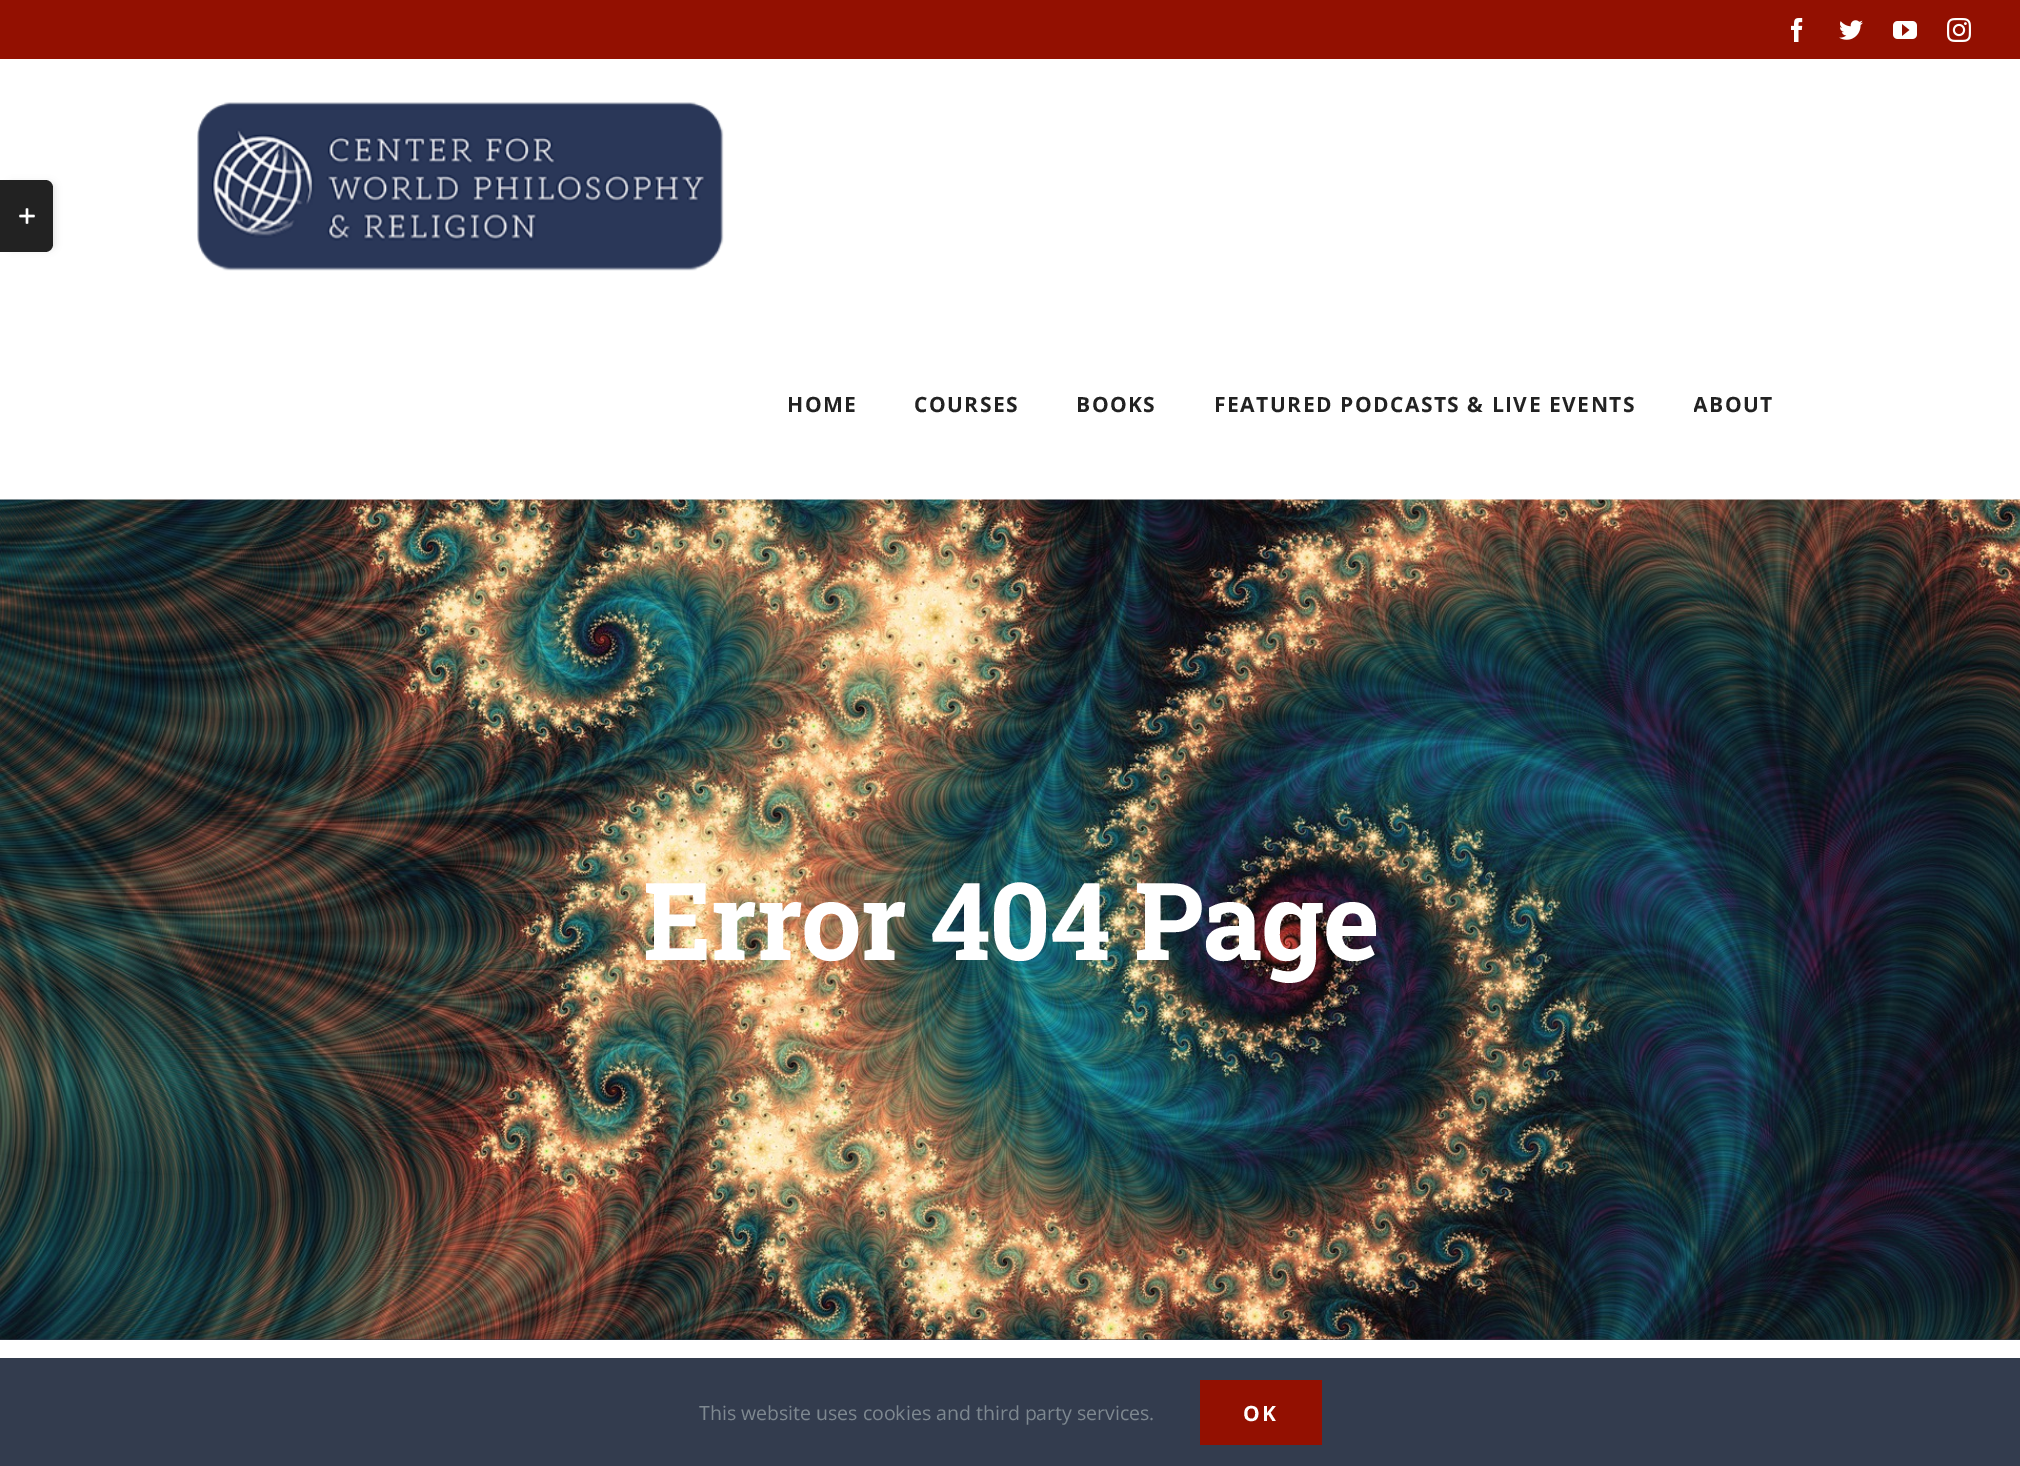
%!PS
<< /PageSize [2020 1466] /PageUsesTransparency true >> setpagedevice
/rgb { 3 { 255 div 3 1 roll } repeat setrgbcolor } def
/font { [ exch dup neg 0 0 3 -1 roll 0 0 ] selectfont } def
/text { moveto show } def
/alpha { dup .setfillconstantalpha .setstrokeconstantalpha } def
/roundrect { 5 dict begin { /r /h /w /y /x } { exch def } forall
  x r add y moveto x w add y 2 copy h add r arct x w add y h add x 1 index r arct
  x y h add x y r arct x y 2 copy exch w add exch r arct closepath end } def
/shadow { 12 dict begin { /a /b /q /h /w /y /x } { exch def } forall gsave /was 0 def
  9 -2 -9 { dup b mul 4 div /e exch def 1 sub .425 mul 2.718 exch exp 1 add a .99 .min exch div /now exch def
    1 1 now sub 1 was sub div sub alpha /was now def
    w h .min e 2 mul add 0 gt { x e sub y e sub w e 2 mul add h e 2 mul add
      q e add b .6 mul add w h .min 2 div e add .min 0 .max roundrect fill } if } for grestore end } def
/picture { 5 dict begin { /h /w /y /x /name } { exch def } forall
  gsave x y translate w h scale
  w h 8 [w 0 0 h 0 0] name (r) file false 3 colorimage grestore end } def
0 .pushpdf14devicefilter
0 1466 translate 1 -1 scale
4 setmiterlimit
255 255 255 rgb
0 0 2020 1466 rectfill
0 0 0 rgb
8 183 46 66 5 4 0.14 shadow
34 34 34 rgb
0 180 moveto 45 0 rlineto 4.5 0 8 3.5 8 8 rcurveto 0 56 rlineto 0 4.5 -3.5 8 -8 8 rcurveto -45 0 rlineto closepath fill
(img_01.rgb) 19 208 16 16 picture
147 16 1 rgb
0 0 2020 59 rectfill
(img_02.rgb) 1791 18 12 24 picture
(img_03.rgb) 1839 20 24 20 picture
(img_04.rgb) 1893 21 24 18 picture
(img_05.rgb) 1947 18 24 24 picture
(img_06.rgb) 197 102 527 169 picture
51 60 78 rgb
0 1339 2020 1 rectfill
(img_07.rgb) 0 499 2020 841 picture
0 1358 2020 108 rectfill
147 16 1 rgb
1200 1380 122 65 rectfill
/OpenSans-Bold 21 font
34 34 34 rgb
787 412 moveto 1.5 0 (HOME) ashow
914 412 moveto 1.5 0 (COURSES) ashow
1076 412 moveto 1.5 0 (BOOKS) ashow
1214 412 moveto 1.5 0 (FEATURED PODCASTS & LIVE EVENTS) ashow
gsave
1694 311 136 189 rectclip
1693 412 moveto 1.5 0 (ABOUT) ashow
grestore
/RobotoSlab-Bold 108 font
255 255 255 rgb
643 960 moveto -1.6 0 (Error 404 Page) ashow
/OpenSans-Regular 19.5 font
126 136 144 rgb
(This website uses cookies and third party services.) 699 1420 text
/OpenSans-Bold 21 font
255 255 255 rgb
1243 1421 moveto 2 0 (OK) ashow
.poppdf14devicefilter showpage
